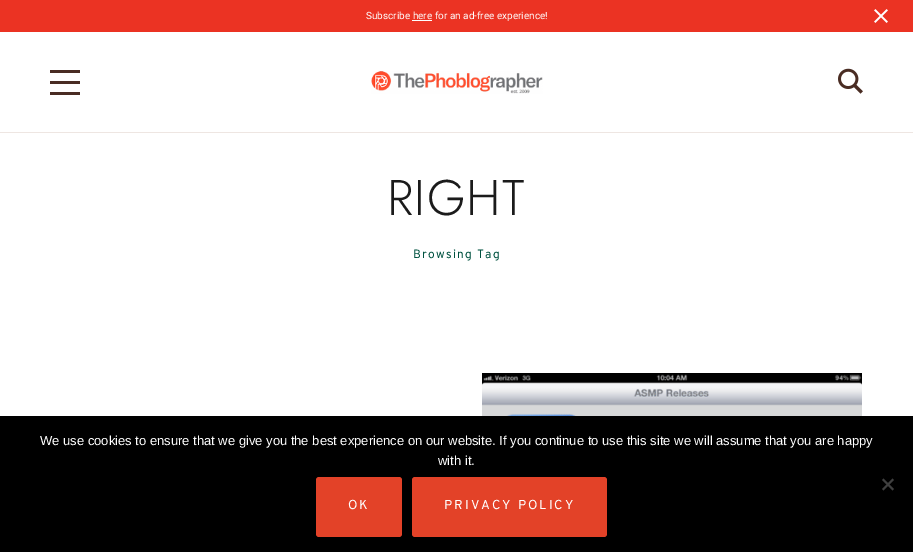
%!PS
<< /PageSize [913 552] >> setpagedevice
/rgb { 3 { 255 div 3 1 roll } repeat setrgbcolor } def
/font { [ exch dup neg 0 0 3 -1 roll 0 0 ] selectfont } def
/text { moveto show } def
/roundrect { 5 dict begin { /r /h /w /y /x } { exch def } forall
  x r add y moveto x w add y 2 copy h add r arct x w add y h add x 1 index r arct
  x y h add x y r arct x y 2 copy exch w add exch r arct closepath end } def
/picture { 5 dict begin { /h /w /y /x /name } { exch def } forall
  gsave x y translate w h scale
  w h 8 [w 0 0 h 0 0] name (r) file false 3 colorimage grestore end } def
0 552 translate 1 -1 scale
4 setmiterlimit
255 255 255 rgb
0 0 913 552 rectfill
235 51 35 rgb
0 0 913 32 rectfill
255 255 255 rgb
412 20 20 1 rectfill
(img_01.rgb) 874 9 14 14 picture
238 230 226 rgb
0 132 913 1 rectfill
73 44 35 rgb
50 70 30 3 rectfill
50 92 30 3 rectfill
50 81 30 3 rectfill
(img_02.rgb) 371 71 172 23 picture
(img_03.rgb) 838 68 25 26 picture
(img_04.rgb) 482 373 380 43 picture
0 0 0 rgb
0 416 913 136 rectfill
64 64 64 rgb
892.5 478.5 moveto 1.5 1.5 rlineto -10.5 10.5 rlineto -1.5 -1.5 rlineto closepath fill
882 480 moveto 1.5 -1.5 rlineto 10.5 10.5 rlineto -1.5 1.5 rlineto closepath fill
227 66 40 rgb
316 477 86 60 3 roundrect fill
412 477 195 60 3 roundrect fill
/Roboto-Regular 10 font
255 255 255 rgb
(Subscribe here for an ad-free experience!) 366 19 text
/Jost-Light 50 font
27 27 27 rgb
387 215 moveto 1.25 0 (RIGHT) ashow
/Overpass-Regular 12 font
0 82 64 rgb
413 258 moveto 1.25 0 (Browsing Tag) ashow
/LiberationSans-Regular 13 font
255 255 255 rgb
(We use cookies to ensure that we give you the best experience on our website. If you continue to use this site we will assume that you are happy) 40 445 text
(with it.) 438 465 text
/Overpass-Regular 13 font
348 509 moveto 2 0 (OK) ashow
444 509 moveto 2 0 (PRIVACY POLICY) ashow
showpage
